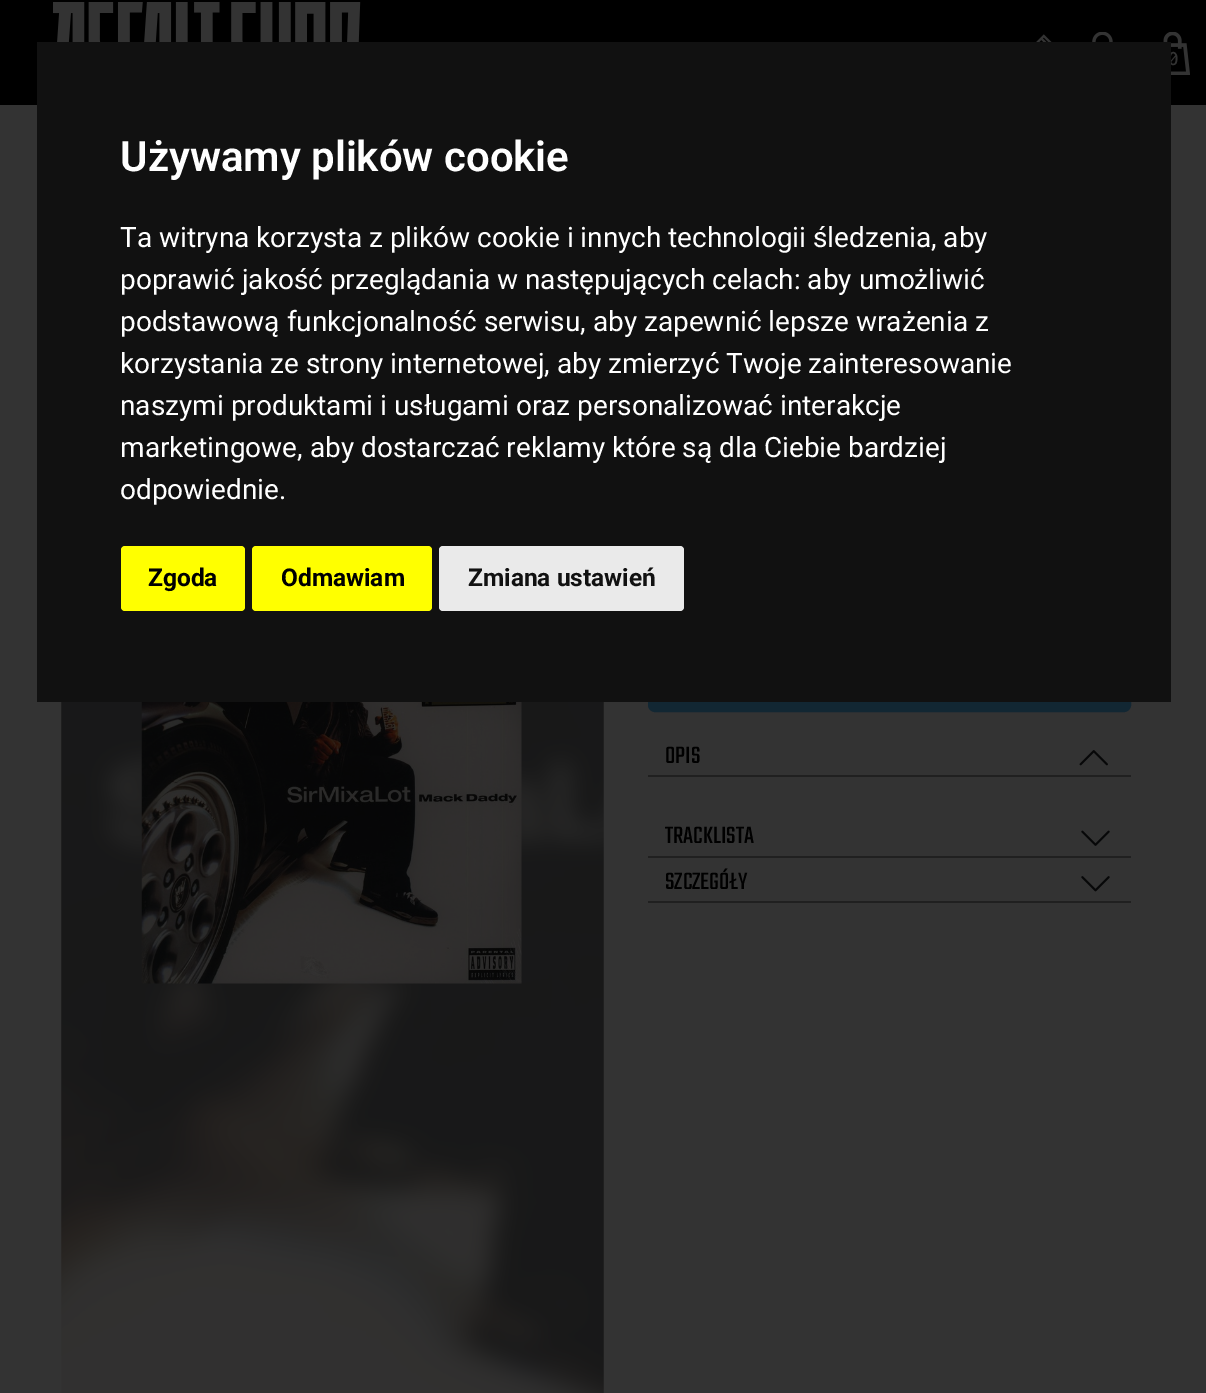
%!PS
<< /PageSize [1206 1393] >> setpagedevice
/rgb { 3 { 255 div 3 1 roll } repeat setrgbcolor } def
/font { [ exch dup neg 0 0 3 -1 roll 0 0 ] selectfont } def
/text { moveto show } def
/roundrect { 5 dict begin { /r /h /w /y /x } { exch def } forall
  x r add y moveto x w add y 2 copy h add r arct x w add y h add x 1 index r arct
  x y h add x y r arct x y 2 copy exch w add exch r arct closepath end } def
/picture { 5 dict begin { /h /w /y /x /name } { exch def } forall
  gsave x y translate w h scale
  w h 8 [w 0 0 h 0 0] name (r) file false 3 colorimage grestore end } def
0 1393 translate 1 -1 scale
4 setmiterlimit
51 51 51 rgb
0 0 1206 1393 rectfill
0 0 0 rgb
0 0 1206 88 rectfill
(img_01.rgb) 53 2 308 40 picture
(img_02.rgb) 1036 34 16 8 picture
(img_03.rgb) 1092 32 21 10 picture
(img_04.rgb) 1163 32 27 43 picture
1171 88 35 17 rectfill
0 88 37 17 rectfill
(img_05.rgb) 61 702 543 691 picture
(img_06.rgb) 141 702 381 282 picture
18 39 51 rgb
649 647 481 64 6 roundrect gsave fill grestore
2 setlinewidth
stroke
32 32 32 rgb
648 775 483 2 rectfill
(img_07.rgb) 1079 750 29 16 picture
648 856 483 2 rectfill
(img_08.rgb) 1081 830 29 16 picture
648 901 483 2 rectfill
(img_09.rgb) 1081 876 29 16 picture
/Inconsolata-SemiBold 21 font
51 51 51 rgb
(0) 1168 65 text
/Teko-Regular 26 font
0 0 0 rgb
(OPIS) 665 763 text
(TRACKLISTA) 665 843 text
(SZCZEGÓŁY) 665 889 text
17 17 17 rgb
37 42 1134 660 rectfill
/Roboto-SemiBold 42 font
255 255 255 rgb
(Używamy plików cookie) 120 171 text
/Roboto-Regular 28 font
(Ta witryna korzysta z plików cookie i innych technologii śledzenia, aby) 120 247 text
(poprawić jakość przeglądania w następujących celach: aby umożliwić) 120 289 text
(podstawową funkcjonalność serwisu, aby zapewnić lepsze wrażenia z) 120 331 text
(korzystania ze strony internetowej, aby zmierzyć Twoje zainteresowanie) 120 373 text
(naszymi produktami i usługami oraz personalizować interakcje) 120 415 text
(marketingowe, aby dostarczać reklamy które są dla Ciebie bardziej) 120 457 text
(odpowiednie.) 120 499 text
255 255 0 rgb
121 546 124 65 4 roundrect fill
/Roboto-Bold 24.5 font
0 0 0 rgb
(Zgoda) 148 586 text
255 255 0 rgb
252 546 180 65 4 roundrect fill
0 0 0 rgb
(Odmawiam) 281 586 text
234 234 234 rgb
439 546 245 65 4 roundrect fill
17 17 17 rgb
(Zmiana ustawień) 468 586 text
showpage
